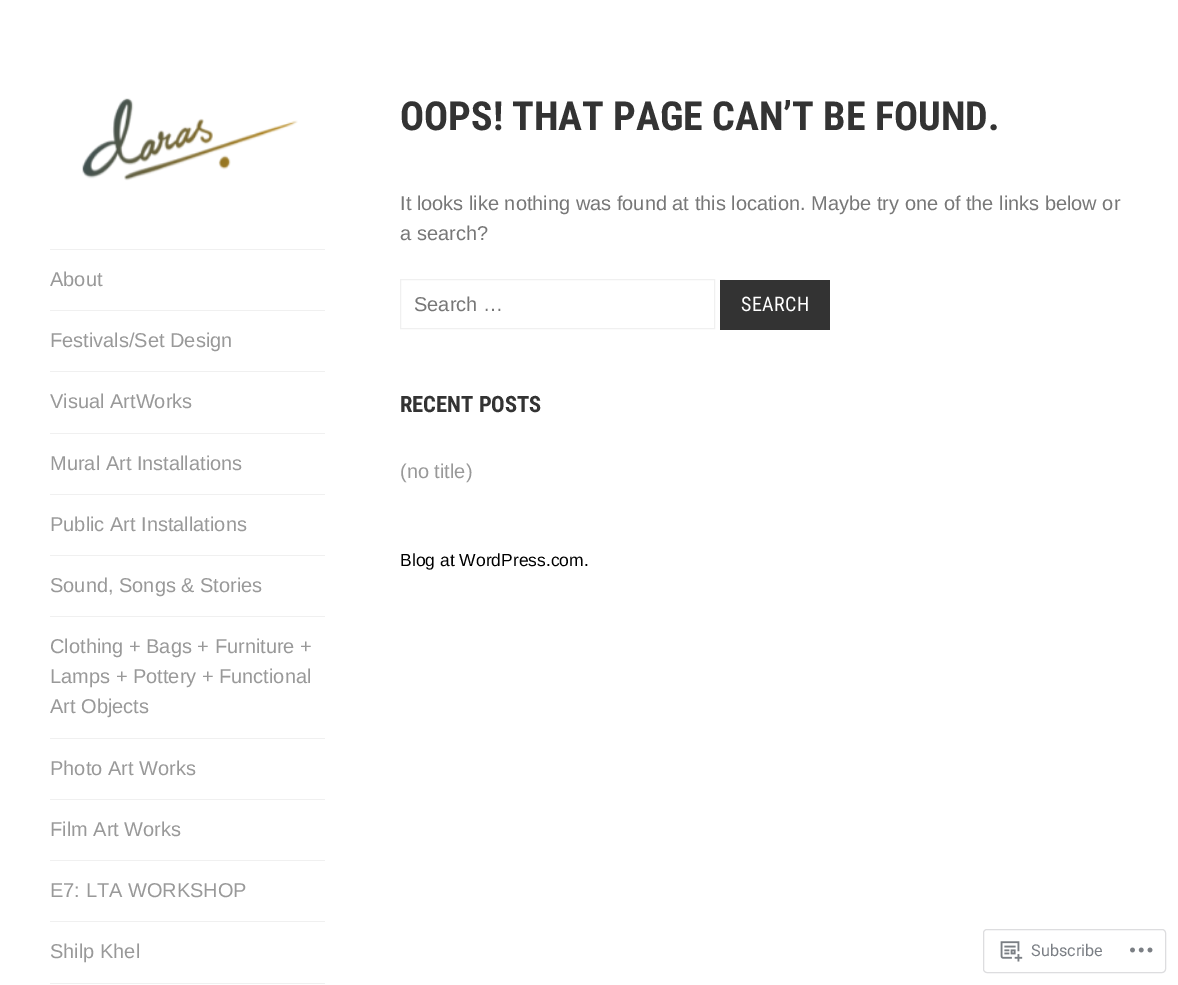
%!PS
<< /PageSize [1178 985] >> setpagedevice
/rgb { 3 { 255 div 3 1 roll } repeat setrgbcolor } def
/font { [ exch dup neg 0 0 3 -1 roll 0 0 ] selectfont } def
/text { moveto show } def
/roundrect { 5 dict begin { /r /h /w /y /x } { exch def } forall
  x r add y moveto x w add y 2 copy h add r arct x w add y h add x 1 index r arct
  x y h add x y r arct x y 2 copy exch w add exch r arct closepath end } def
/picture { 5 dict begin { /h /w /y /x /name } { exch def } forall
  gsave x y translate w h scale
  w h 8 [w 0 0 h 0 0] name (r) file false 3 colorimage grestore end } def
0 985 translate 1 -1 scale
4 setmiterlimit
255 255 255 rgb
0 0 1178 985 rectfill
(img_01.rgb) 82 98 216 83 picture
240 240 240 rgb
50 249 275 1 rectfill
50 310 275 1 rectfill
50 371 275 1 rectfill
50 433 275 1 rectfill
50 494 275 1 rectfill
50 555 275 1 rectfill
50 616 275 1 rectfill
50 738 275 1 rectfill
50 799 275 1 rectfill
50 860 275 1 rectfill
50 921 275 1 rectfill
50 983 275 1 rectfill
400.5 279.5 314 49 rectstroke
51 51 51 rgb
720 280 110 50 rectfill
221 221 223 rgb
983.5 929.5 182 43 3.5 roundrect stroke
(img_02.rgb) 1000 941 23 21 picture
(img_03.rgb) 1130 947 23 6 picture
/Arimo-Regular 20 font
153 153 153 rgb
(About) 50 286 text
(Festivals/Set Design) 50 347 text
(Visual ArtWorks) 50 408 text
(Mural Art Installations) 50 470 text
(Public Art Installations) 50 531 text
(Sound, Songs & Stories) 50 592 text
(Clothing + Bags + Furniture +) 50 653 text
(Lamps + Pottery + Functional) 50 683 text
(Art Objects) 50 713 text
(Photo Art Works) 50 775 text
(Film Art Works) 50 836 text
(E7: LTA WORKSHOP) 50 897 text
(Shilp Khel) 50 958 text
/RobotoCondensed-Bold 40 font
51 51 51 rgb
(OOPS! THAT PAGE CAN’T BE FOUND.) 400 130 text
/Arimo-Regular 20 font
119 119 119 rgb
(It looks like nothing was found at this location. Maybe try one of the links below or) 400 210 text
(a search?) 400 240 text
(Search …) 414 311 text
/RobotoCondensed-Regular 20 font
255 255 255 rgb
741 311 moveto 0.5 0 (SEARCH) ashow
/RobotoCondensed-Bold 22.5 font
51 51 51 rgb
(RECENT POSTS) 400 412 text
/Arimo-Regular 20 font
153 153 153 rgb
(\(no title\)) 400 478 text
/Arimo-Regular 17.5 font
0 0 0 rgb
(Blog at WordPress.com.) 400 566 text
/Roboto-Regular 16.25 font
123 127 133 rgb
(Subscribe) 1031 956 text
showpage
